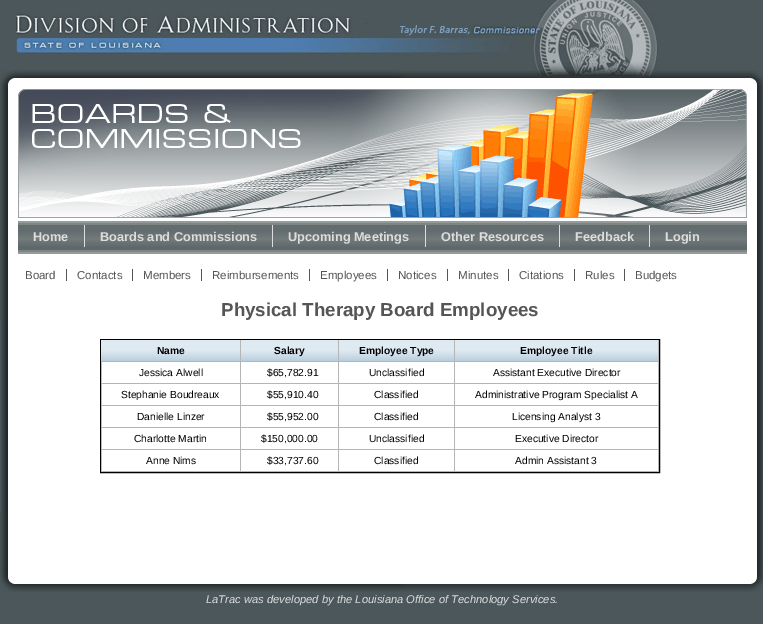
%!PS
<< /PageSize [763 624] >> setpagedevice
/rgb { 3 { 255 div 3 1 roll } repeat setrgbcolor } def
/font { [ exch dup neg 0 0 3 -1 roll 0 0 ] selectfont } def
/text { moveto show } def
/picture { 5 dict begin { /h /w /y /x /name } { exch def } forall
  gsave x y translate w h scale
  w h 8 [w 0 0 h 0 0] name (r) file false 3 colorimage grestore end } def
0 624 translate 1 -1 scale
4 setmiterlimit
75 87 90 rgb
0 0 763 624 rectfill
(img_01.rgb) 0 0 763 88 picture
(img_02.rgb) 0 88 763 233 picture
(img_03.rgb) 18 89 729 129 picture
(img_04.rgb) 18 221 729 33 picture
221 221 221 rgb
84 225 1 22 rectfill
272 225 1 22 rectfill
425 225 1 22 rectfill
559 225 1 22 rectfill
649 225 1 22 rectfill
(img_05.rgb) 1 321 762 192 picture
85 85 85 rgb
66 269 1 12 rectfill
132 269 1 12 rectfill
201 269 1 12 rectfill
309 269 1 12 rectfill
387 269 1 12 rectfill
447 269 1 12 rectfill
508 269 1 12 rectfill
574 269 1 12 rectfill
624 269 1 12 rectfill
0 0 0 rgb
100.5 339.5 559 133 rectstroke
(img_06.rgb) 101 340 139 21 picture
181 181 181 rgb
240 340 1 132 rectfill
101 361 140 1 rectfill
(img_07.rgb) 241 340 97 21 picture
338 340 1 132 rectfill
241 361 98 1 rectfill
(img_08.rgb) 339 340 115 21 picture
454 340 1 132 rectfill
339 361 116 1 rectfill
(img_09.rgb) 455 340 203 21 picture
658 340 1 132 rectfill
455 361 204 1 rectfill
101 383 558 1 rectfill
101 405 558 1 rectfill
101 427 558 1 rectfill
101 449 558 1 rectfill
101 471 558 1 rectfill
(img_10.rgb) 0 513 763 79 picture
/LiberationSans-Bold 12.75 font
221 221 221 rgb
(Home) 33 241 text
(Boards and Commissions) 100 241 text
(Upcoming Meetings) 288 241 text
(Other Resources) 441 241 text
(Feedback) 575 241 text
(Login) 665 241 text
/LiberationSans-Regular 11.5 font
85 85 85 rgb
(Board) 25 279 text
(Contacts) 77 279 text
(Members) 143 279 text
(Reimbursements) 212 279 text
(Employees) 320 279 text
(Notices) 398 279 text
(Minutes) 458 279 text
(Citations) 519 279 text
(Rules) 585 279 text
(Budgets) 635 279 text
/LiberationSans-Bold 18.75 font
(Physical Therapy Board Employees) 221 316 text
/LiberationSans-Bold 10.25 font
0 0 0 rgb
(Name) 157 354 text
(Salary) 274 354 text
(Employee Type) 359 354 text
(Employee Title) 520 354 text
/LiberationSans-Regular 10.25 font
(Jessica Alwell) 139 376 text
($65,782.91) 267 376 text
(Unclassified) 369 376 text
(Assistant Executive Director) 493 376 text
(Stephanie Boudreaux) 121 398 text
($55,910.40) 267 398 text
(Classified) 374 398 text
(Administrative Program Specialist A) 475 398 text
(Danielle Linzer) 137 420 text
($55,952.00) 267 420 text
(Classified) 374 420 text
(Licensing Analyst 3) 512 420 text
(Charlotte Martin) 134 442 text
($150,000.00) 261 442 text
(Unclassified) 369 442 text
(Executive Director) 515 442 text
(Anne Nims) 146 464 text
($33,737.60) 267 464 text
(Classified) 374 464 text
(Admin Assistant 3) 515 464 text
/LiberationSans-Italic 11.2 font
221 221 221 rgb
(LaTrac was developed by the Louisiana Office of Technology Services.) 206 603 text
showpage
